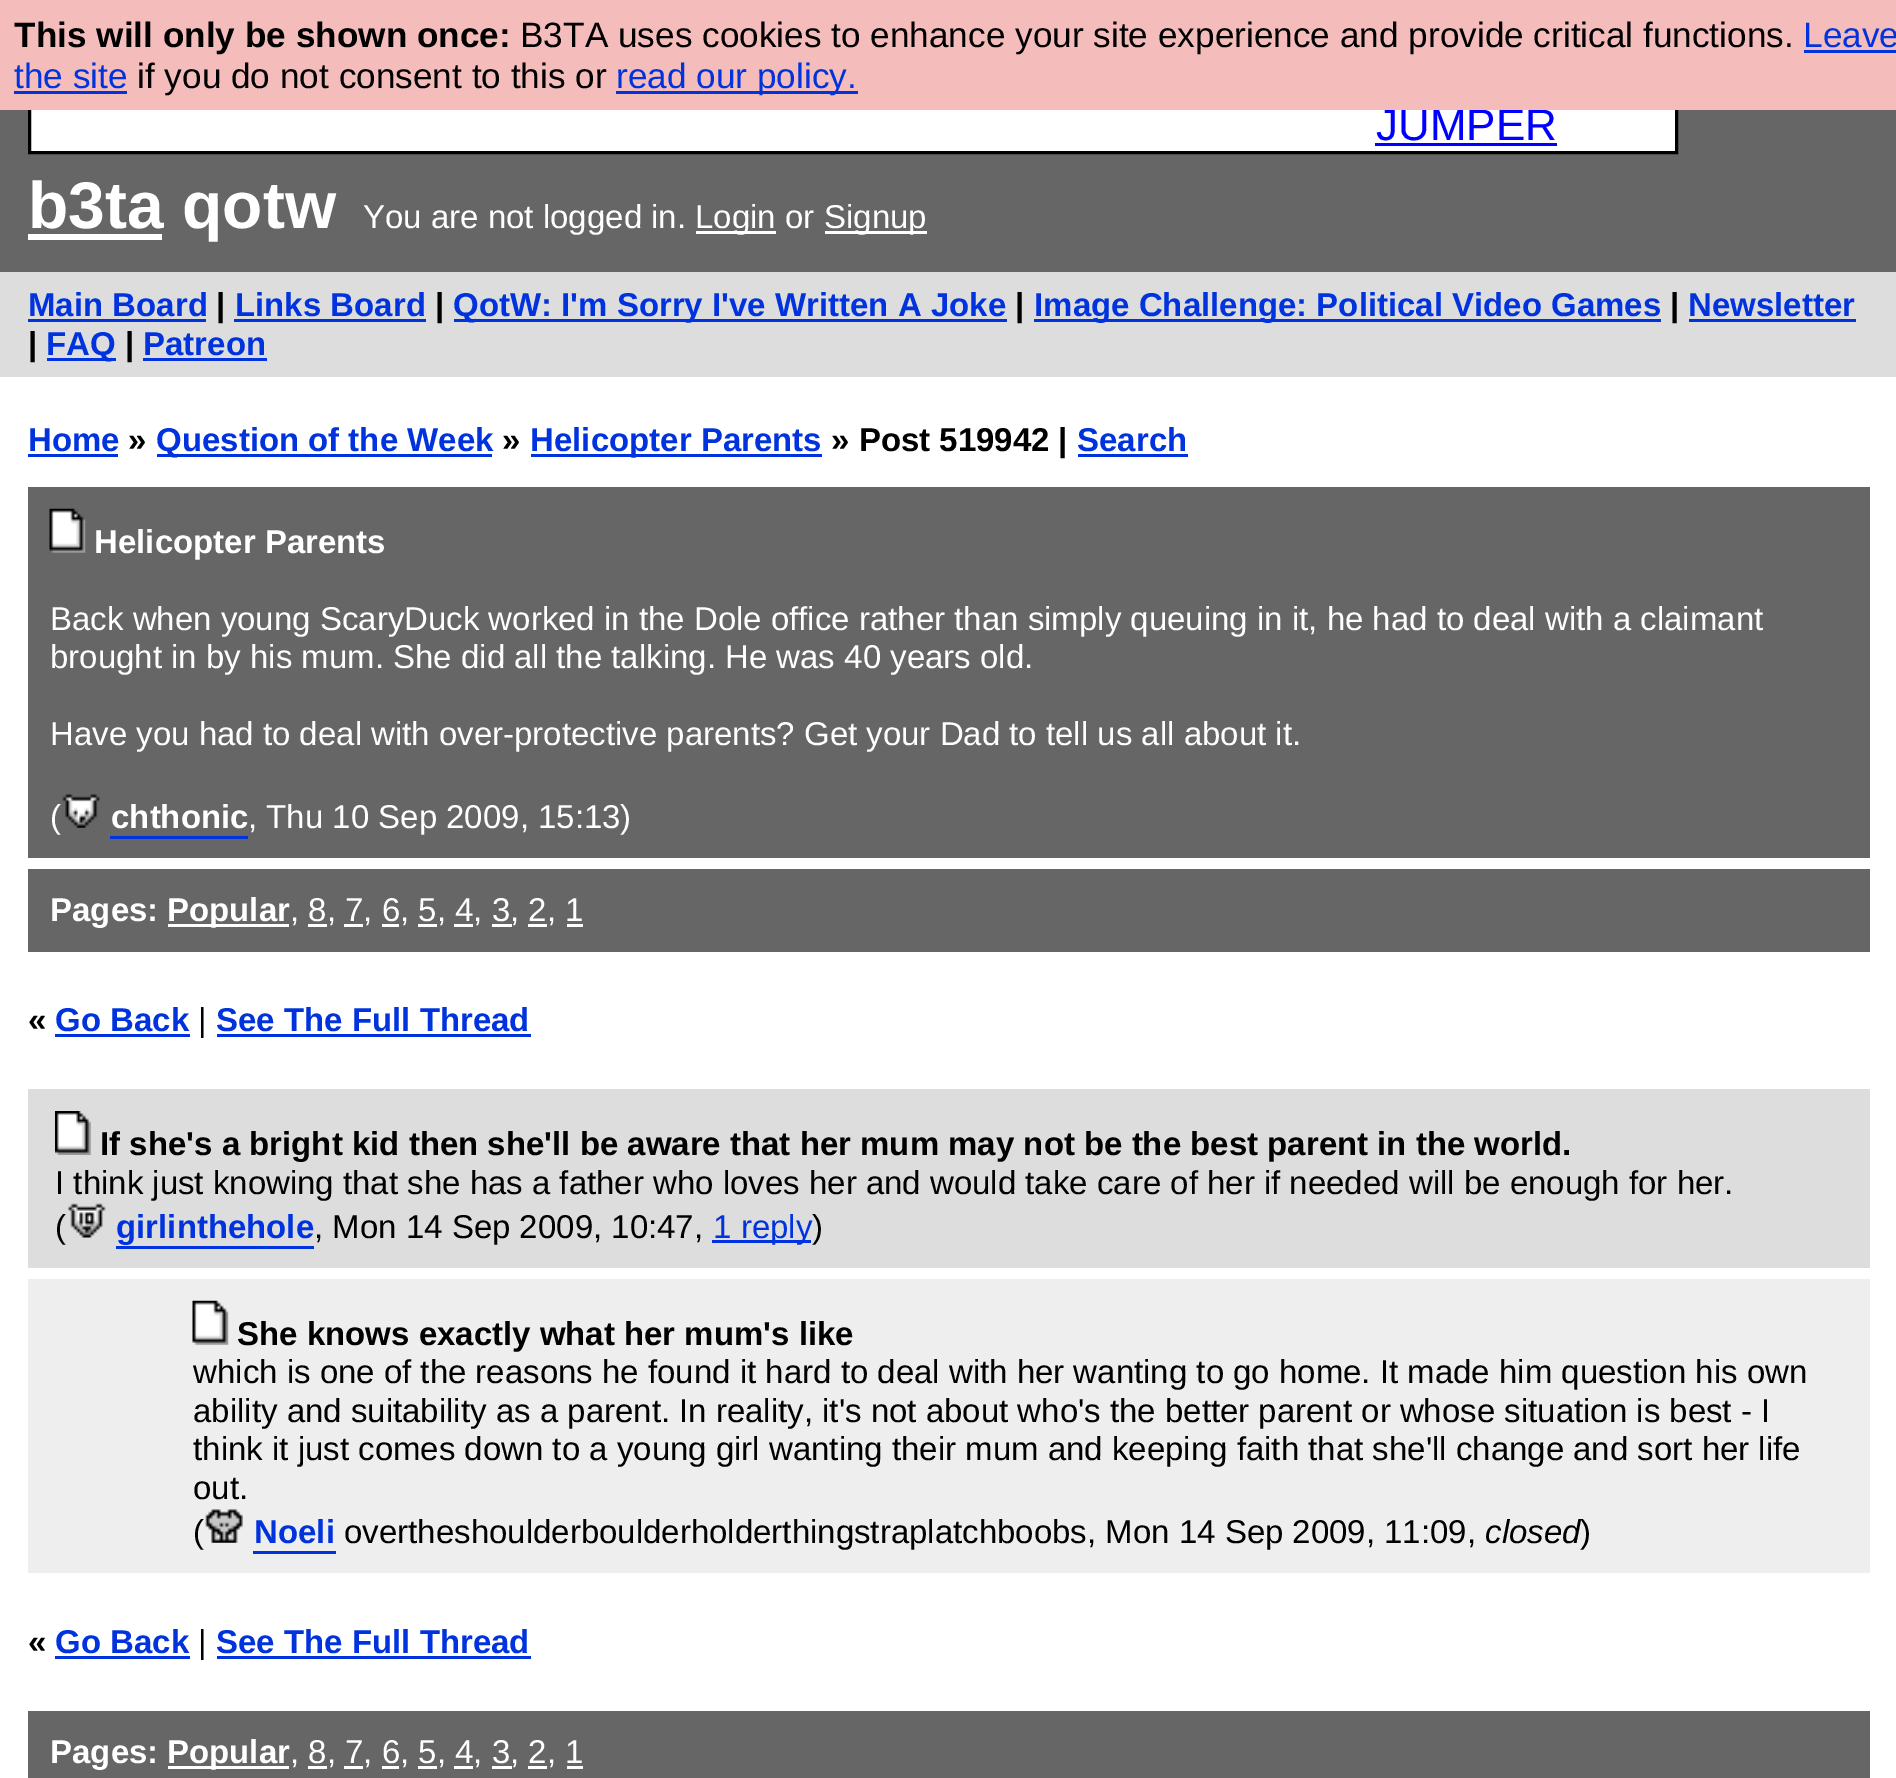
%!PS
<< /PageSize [1896 1778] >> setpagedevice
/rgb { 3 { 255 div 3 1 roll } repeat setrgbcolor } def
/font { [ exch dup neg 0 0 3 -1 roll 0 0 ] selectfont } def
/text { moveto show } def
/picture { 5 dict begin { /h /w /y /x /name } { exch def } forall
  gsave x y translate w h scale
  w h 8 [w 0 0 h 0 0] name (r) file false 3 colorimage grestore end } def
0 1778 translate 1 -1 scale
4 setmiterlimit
255 255 255 rgb
0 0 1896 1778 rectfill
102 102 102 rgb
0 110 1896 162 rectfill
255 255 255 rgb
31 110 1644 41 rectfill
0 0 0 rgb
3 setlinewidth
29.5 29.5 1647 123 rectstroke
0 0 255 rgb
1375 143 182 3 rectfill
255 255 255 rgb
28 234 134 6 rectfill
696 231 80 3 rectfill
825 231 102 3 rectfill
221 221 221 rgb
0 272 1896 105 rectfill
0 51 221 rgb
28 319 178 3 rectfill
234 319 192 3 rectfill
454 319 553 3 rectfill
1034 319 627 3 rectfill
1689 319 167 3 rectfill
47 358 69 3 rectfill
143 358 124 3 rectfill
28 454 90 3 rectfill
157 454 335 3 rectfill
531 454 291 3 rectfill
1078 454 110 3 rectfill
102 102 102 rgb
28 487 1842 371 rectfill
(img_01.rgb) 49 508 37 45 picture
(img_02.rgb) 62 794 38 34 picture
0 51 221 rgb
110 836 138 3 rectfill
102 102 102 rgb
28 869 1842 83 rectfill
255 255 255 rgb
168 924 121 3 rectfill
308 924 19 3 rectfill
344 924 19 3 rectfill
382 924 17 3 rectfill
418 924 19 3 rectfill
454 924 19 3 rectfill
492 924 20 3 rectfill
528 924 19 3 rectfill
567 924 16 3 rectfill
0 51 221 rgb
55 1034 135 3 rectfill
217 1034 314 3 rectfill
221 221 221 rgb
28 1089 1842 179 rectfill
(img_03.rgb) 55 1111 36 44 picture
(img_04.rgb) 68 1203 38 35 picture
0 51 221 rgb
116 1246 198 3 rectfill
712 1240 99 3 rectfill
238 238 238 rgb
28 1279 1842 294 rectfill
(img_05.rgb) 192 1300 37 45 picture
(img_06.rgb) 205 1509 38 34 picture
0 51 221 rgb
253 1551 83 3 rectfill
55 1656 135 3 rectfill
217 1656 314 3 rectfill
102 102 102 rgb
28 1711 1842 67 rectfill
255 255 255 rgb
168 1766 121 3 rectfill
308 1766 19 3 rectfill
344 1766 19 3 rectfill
382 1766 17 3 rectfill
418 1766 19 3 rectfill
454 1766 19 3 rectfill
492 1766 20 3 rectfill
528 1766 19 3 rectfill
567 1766 16 3 rectfill
/LiberationSans-Regular 44 font
0 0 255 rgb
(JUMPER) 1376 140 text
245 188 188 rgb
0 0 1896 110 rectfill
0 51 221 rgb
616 91 242 3 rectfill
/LiberationSans-Regular 35.2 font
(read our policy.) 616 88 text
0 0 0 rgb
(if you do not consent to this or) 137 88 text
0 51 221 rgb
(the site) 14 88 text
14 91 113 3 rectfill
(Leave) 1803 47 text
1804 50 92 3 rectfill
0 0 0 rgb
(B3TA uses cookies to enhance your site experience and provide critical functions.) 520 47 text
/LiberationSans-Bold 35.2 font
(This will only be shown once:) 14 47 text
/LiberationSans-Bold 66 font
255 255 255 rgb
(b3ta qotw) 28 228 text
/LiberationSans-Regular 33 font
(You are not logged in.) 363 228 text
(Login or) 695 228 text
(Signup) 824 228 text
/LiberationSans-Bold 33 font
0 51 221 rgb
(Main Board) 28 316 text
0 0 0 rgb
(|) 216 316 text
0 51 221 rgb
(Links Board) 235 316 text
0 0 0 rgb
(|) 435 316 text
0 51 221 rgb
(QotW: I'm Sorry I've Written A Joke) 453 316 text
0 0 0 rgb
(|) 1015 316 text
0 51 221 rgb
(Image Challenge: Political Video Games) 1034 316 text
0 0 0 rgb
(|) 1670 316 text
0 51 221 rgb
(Newsletter) 1688 316 text
0 0 0 rgb
(|) 28 355 text
0 51 221 rgb
(FAQ) 46 355 text
0 0 0 rgb
(|) 125 355 text
0 51 221 rgb
(Patreon) 143 355 text
(Home) 28 451 text
0 0 0 rgb
(») 128 451 text
0 51 221 rgb
(Question of the Week) 156 451 text
0 0 0 rgb
(») 502 451 text
0 51 221 rgb
(Helicopter Parents) 530 451 text
0 0 0 rgb
(» Post 519942 |) 831 451 text
0 51 221 rgb
(Search) 1077 451 text
255 255 255 rgb
(Helicopter Parents) 94 553 text
/LiberationSans-Regular 33 font
(Back when young ScaryDuck worked in the Dole office rather than simply queuing in it, he had to deal with a claimant) 50 630 text
(brought in by his mum. She did all the talking. He was 40 years old.) 50 668 text
(Have you had to deal with over-protective parents? Get your Dad to tell us all about it.) 50 745 text
(\() 50 828 text
/LiberationSans-Bold 33 font
(chthonic) 111 828 text
/LiberationSans-Regular 33 font
(, Thu 10 Sep 2009, 15:13\)) 248 828 text
/LiberationSans-Bold 33 font
(Pages:) 50 921 text
(Popular) 167 921 text
/LiberationSans-Regular 33 font
(, 8, 7, 6, 5, 4, 3, 2, 1) 290 921 text
/LiberationSans-Bold 33 font
0 0 0 rgb
(«) 28 1031 text
0 51 221 rgb
(Go Back) 55 1031 text
/LiberationSans-Regular 33 font
0 0 0 rgb
(|) 198 1031 text
/LiberationSans-Bold 33 font
0 51 221 rgb
(See The Full Thread) 216 1031 text
0 0 0 rgb
(If she's a bright kid then she'll be aware that her mum may not be the best parent in the world.) 100 1155 text
/LiberationSans-Regular 33 font
(I think just knowing that she has a father who loves her and would take care of her if needed will be enough for her.) 55 1194 text
(\() 55 1238 text
/LiberationSans-Bold 33 font
0 51 221 rgb
(girlinthehole) 116 1238 text
/LiberationSans-Regular 33 font
0 0 0 rgb
(, Mon 14 Sep 2009, 10:47,) 314 1238 text
0 51 221 rgb
(1 reply) 713 1238 text
0 0 0 rgb
(\)) 812 1238 text
/LiberationSans-Bold 33 font
(She knows exactly what her mum's like) 237 1345 text
/LiberationSans-Regular 33 font
(which is one of the reasons he found it hard to deal with her wanting to go home. It made him question his own) 193 1383 text
(ability and suitability as a parent. In reality, it's not about who's the better parent or whose situation is best - I) 193 1422 text
(think it just comes down to a young girl wanting their mum and keeping faith that she'll change and sort her life) 193 1460 text
(out.) 193 1499 text
(\() 193 1543 text
/LiberationSans-Bold 33 font
0 51 221 rgb
(Noeli) 254 1543 text
/LiberationSans-Regular 33 font
0 0 0 rgb
(overtheshoulderboulderholderthingstraplatchboobs, Mon 14 Sep 2009, 11:09,) 344 1543 text
/LiberationSans-Italic 33 font
(closed) 1485 1543 text
/LiberationSans-Regular 33 font
(\)) 1580 1543 text
/LiberationSans-Bold 33 font
(«) 28 1653 text
0 51 221 rgb
(Go Back) 55 1653 text
/LiberationSans-Regular 33 font
0 0 0 rgb
(|) 198 1653 text
/LiberationSans-Bold 33 font
0 51 221 rgb
(See The Full Thread) 216 1653 text
255 255 255 rgb
(Pages:) 50 1763 text
(Popular) 167 1763 text
/LiberationSans-Regular 33 font
(, 8, 7, 6, 5, 4, 3, 2, 1) 290 1763 text
showpage
